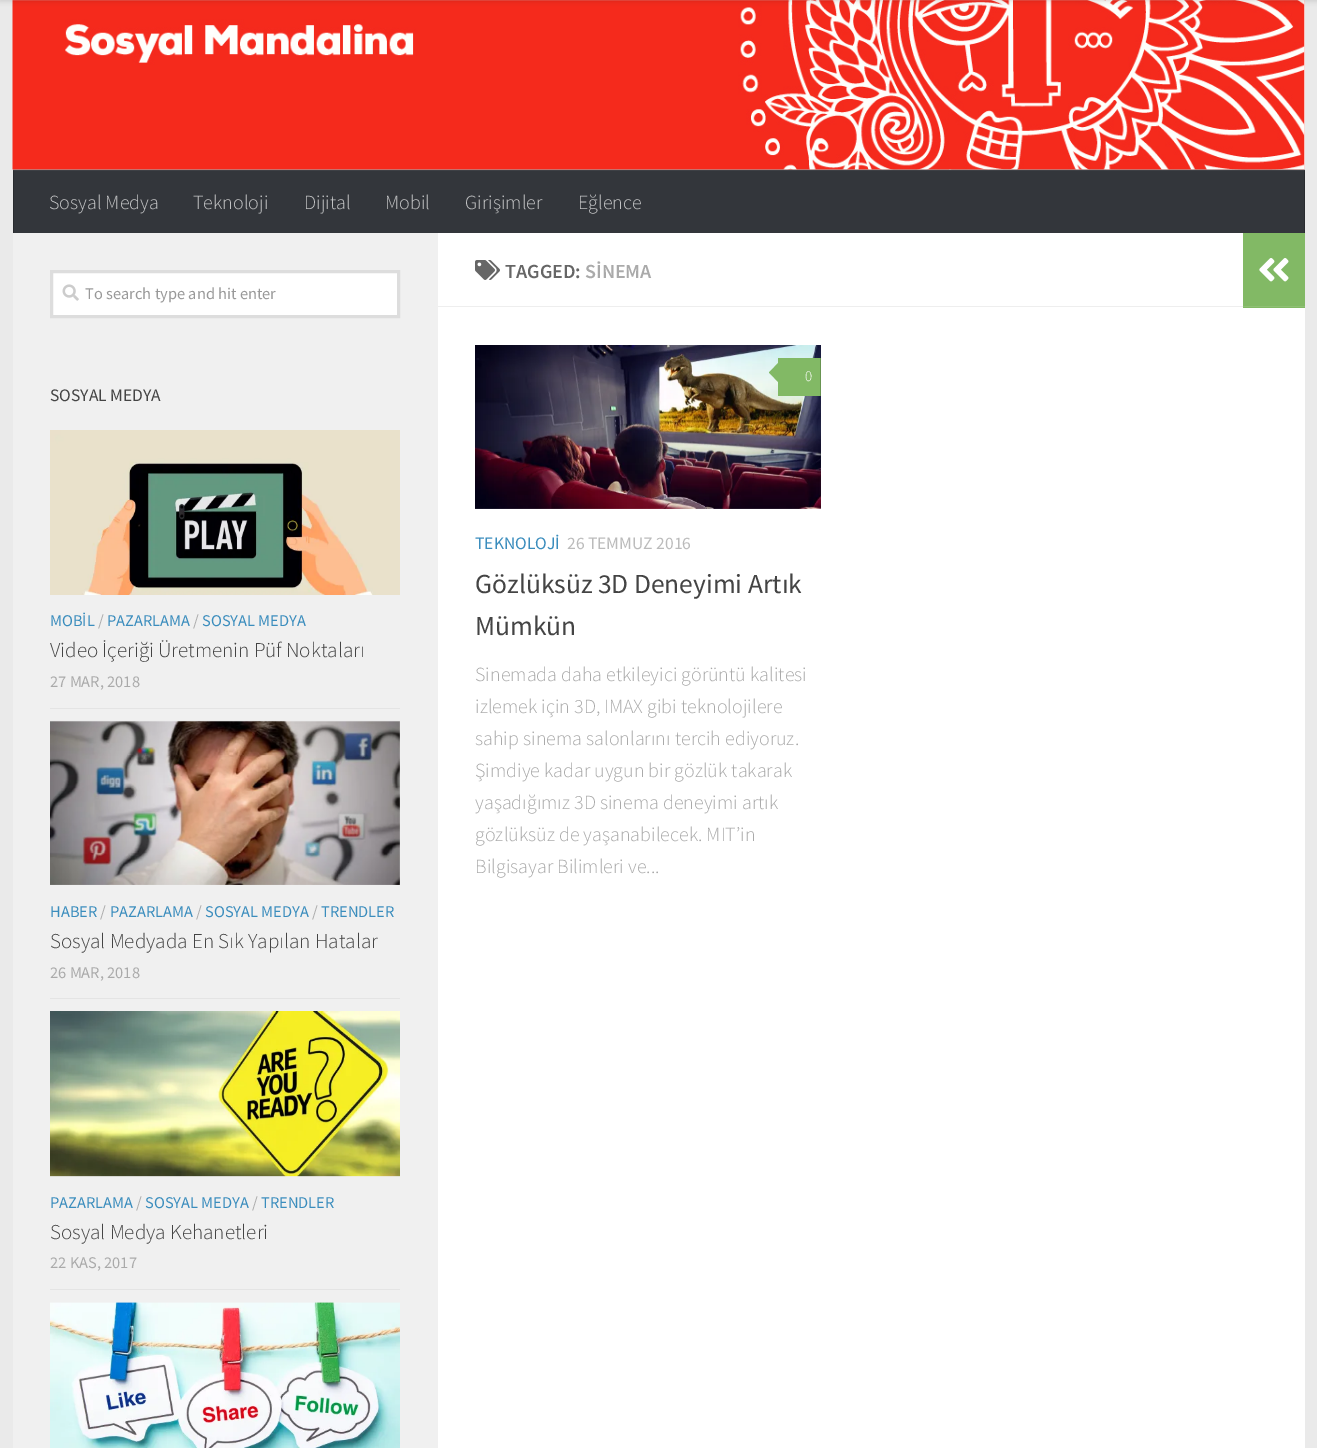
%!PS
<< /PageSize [1317 1448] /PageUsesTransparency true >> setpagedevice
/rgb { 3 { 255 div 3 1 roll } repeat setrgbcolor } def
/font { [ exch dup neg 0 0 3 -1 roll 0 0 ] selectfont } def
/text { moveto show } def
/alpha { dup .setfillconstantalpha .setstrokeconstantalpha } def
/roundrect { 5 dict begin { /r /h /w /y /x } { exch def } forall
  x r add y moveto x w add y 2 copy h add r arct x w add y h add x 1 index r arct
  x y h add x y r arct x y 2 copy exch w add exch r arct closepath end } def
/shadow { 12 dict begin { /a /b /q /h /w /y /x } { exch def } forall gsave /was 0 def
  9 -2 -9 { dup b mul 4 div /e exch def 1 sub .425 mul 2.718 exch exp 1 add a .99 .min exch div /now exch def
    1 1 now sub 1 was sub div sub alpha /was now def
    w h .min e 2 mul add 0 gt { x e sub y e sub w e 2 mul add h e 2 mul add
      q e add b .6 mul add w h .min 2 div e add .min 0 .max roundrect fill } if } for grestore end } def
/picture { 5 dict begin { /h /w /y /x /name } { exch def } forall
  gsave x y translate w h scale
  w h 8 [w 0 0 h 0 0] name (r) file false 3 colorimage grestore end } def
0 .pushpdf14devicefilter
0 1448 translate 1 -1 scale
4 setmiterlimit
234 234 234 rgb
0 0 1317 1448 rectfill
(img_01.rgb) 12 0 1293 170 picture
0.15 alpha
255 255 255 rgb
0 0 moveto 0 1 rlineto 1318 0 rlineto 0 -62 rlineto 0 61 rlineto closepath fill
1 alpha
0 0 0 rgb
0 -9 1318 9 0 3 0.2 shadow
0.2 alpha
13 169 1292 1 rectfill
1 alpha
51 54 59 rgb
14 171 1290 62 rectfill
61 64 69 rgb
13 170 1292 1 rectfill
41 43 47 rgb
1304 170 1 63 rectfill
52 54 57 rgb
1304 170 1 1 rectfill
41 43 47 rgb
13 170 1 63 rectfill
52 54 57 rgb
13 170 1 1 rectfill
255 255 255 rgb
438 233 867 1215 rectfill
240 240 240 rgb
13 233 425 1215 rectfill
255 255 255 rgb
51.5 271.5 moveto 347 0 rlineto 0 45 rlineto -347 0 rlineto closepath gsave fill grestore
221 221 221 rgb
3 setlinewidth
stroke
(img_02.rgb) 62 284 17 17 picture
228 228 228 rgb
50 708 350 1 rectfill
(img_03.rgb) 50 430 350 165 picture
50 998 350 1 rectfill
(img_04.rgb) 50 720 350 165 picture
50 1289 350 1 rectfill
(img_05.rgb) 50 1011 350 166 picture
(img_06.rgb) 50 1302 350 146 picture
238 238 238 rgb
438 306 805 1 rectfill
(img_07.rgb) 475 260 25 20 picture
(img_08.rgb) 475 345 346 164 picture
130 185 101 rgb
778 358 42 38 rectfill
104 148 81 rgb
820 358 1 38 rectfill
130 185 101 rgb
780 361 moveto 0 23 rlineto -11 -11.5 rlineto closepath fill
1243 233 62 75 rectfill
143 192 116 rgb
1243 306 62 1 rectfill
(img_09.rgb) 1259 258 30 24 picture
/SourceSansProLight-Light 20 font
194 195 196 rgb
(Sosyal Medya) 49 209 text
(Teknoloji) 193 209 text
(Dijital) 304 209 text
(Mobil) 385 209 text
(Girişimler) 465 209 text
(Eğlence) 578 209 text
/SourceSansPro-Regular 16.4 font
153 153 153 rgb
(To search type and hit enter) 85 299 text
/SourceSansPro-Regular 17.5 font
68 68 68 rgb
(SOSYAL MEDYA) 50 401 text
/SourceSansPro-Regular 16.4 font
59 141 189 rgb
(MOBİL) 50 626 text
170 170 170 rgb
(/) 98 626 text
59 141 189 rgb
(PAZARLAMA) 107 626 text
170 170 170 rgb
(/) 193 626 text
59 141 189 rgb
(SOSYAL MEDYA) 202 626 text
/SourceSansProLight-Light 21.1 font
68 68 68 rgb
(Video İçeriği Üretmenin Püf Noktaları) 50 657 text
/SourceSansPro-Regular 16.4 font
170 170 170 rgb
(27 MAR, 2018) 50 687 text
59 141 189 rgb
(HABER) 50 917 text
170 170 170 rgb
(/) 100 917 text
59 141 189 rgb
(PAZARLAMA) 110 917 text
170 170 170 rgb
(/) 196 917 text
59 141 189 rgb
(SOSYAL MEDYA) 205 917 text
170 170 170 rgb
(/) 312 917 text
59 141 189 rgb
(TRENDLER) 321 917 text
/SourceSansProLight-Light 21.1 font
68 68 68 rgb
(Sosyal Medyada En Sık Yapılan Hatalar) 50 948 text
/SourceSansPro-Regular 16.4 font
170 170 170 rgb
(26 MAR, 2018) 50 978 text
59 141 189 rgb
(PAZARLAMA) 50 1208 text
170 170 170 rgb
(/) 136 1208 text
59 141 189 rgb
(SOSYAL MEDYA) 145 1208 text
170 170 170 rgb
(/) 252 1208 text
59 141 189 rgb
(TRENDLER) 261 1208 text
/SourceSansProLight-Light 21.1 font
68 68 68 rgb
(Sosyal Medya Kehanetleri) 50 1239 text
/SourceSansPro-Regular 16.4 font
170 170 170 rgb
(22 KAS, 2017) 50 1268 text
/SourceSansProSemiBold-SemiBold 20 font
102 102 102 rgb
(TAGGED:) 505 278 text
170 170 170 rgb
(SİNEMA) 585 278 text
/SourceSansProLight-Light 15 font
255 255 255 rgb
(0) 805 381 text
/SourceSansPro-Regular 17.5 font
59 141 189 rgb
(TEKNOLOJİ) 475 549 text
187 187 187 rgb
(26 TEMMUZ 2016) 567 549 text
/SourceSansPro-Regular 27.5 font
68 68 68 rgb
(Gözlüksüz 3D Deneyimi Artık) 475 593 text
(Mümkün) 475 635 text
/SourceSansProLight-Light 20 font
170 170 170 rgb
(Sinemada daha etkileyici görüntü kalitesi) 475 681 text
(izlemek için 3D, IMAX gibi teknolojilere) 475 713 text
(sahip sinema salonlarını tercih ediyoruz.) 475 745 text
(Şimdiye kadar uygun bir gözlük takarak) 475 777 text
(yaşadığımız 3D sinema deneyimi artık) 475 809 text
(gözlüksüz de yaşanabilecek. MIT’in) 475 841 text
(Bilgisayar Bilimleri ve...) 475 873 text
.poppdf14devicefilter showpage
